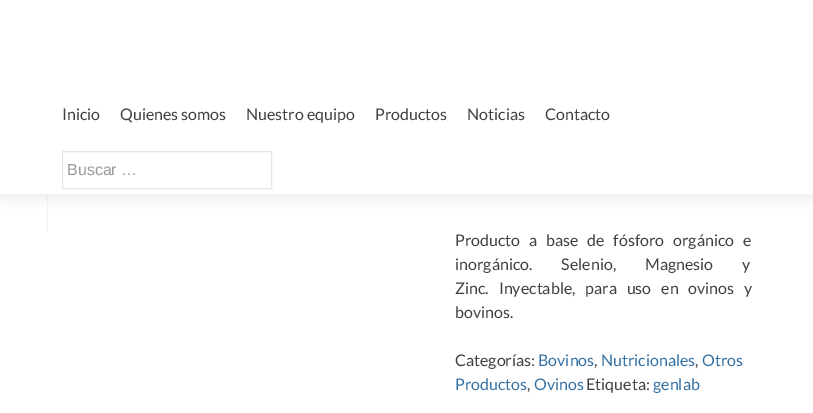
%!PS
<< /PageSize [813 413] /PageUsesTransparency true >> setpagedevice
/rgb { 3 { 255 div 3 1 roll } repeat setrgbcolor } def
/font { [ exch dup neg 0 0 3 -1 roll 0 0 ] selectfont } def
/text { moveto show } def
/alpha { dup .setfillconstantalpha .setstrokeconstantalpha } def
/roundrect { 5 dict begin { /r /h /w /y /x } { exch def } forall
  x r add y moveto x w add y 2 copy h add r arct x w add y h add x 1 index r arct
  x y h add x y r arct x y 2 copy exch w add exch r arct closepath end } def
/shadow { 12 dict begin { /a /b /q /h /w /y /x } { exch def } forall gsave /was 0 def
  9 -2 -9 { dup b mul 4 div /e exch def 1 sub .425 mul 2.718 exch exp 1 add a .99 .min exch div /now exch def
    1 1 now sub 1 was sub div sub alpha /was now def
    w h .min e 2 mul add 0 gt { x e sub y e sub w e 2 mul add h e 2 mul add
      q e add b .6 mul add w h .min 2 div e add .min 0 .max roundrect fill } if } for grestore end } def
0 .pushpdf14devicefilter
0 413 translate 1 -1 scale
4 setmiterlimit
255 255 255 rgb
0 0 813 413 rectfill
242 242 242 rgb
47 196 1 36 rectfill
50 50 50 rgb
0 5 813 194 0 5.5 0.08 shadow
255 255 255 rgb
0 0 813 194 rectfill
230 230 230 rgb
62.5 151.5 209 37 rectstroke
/Lato-Regular 16 font
64 64 64 rgb
(Inicio) 62 120 text
(Quienes somos) 120 120 text
(Nuestro equipo) 246 120 text
(Productos) 375 120 text
(Noticias) 467 120 text
(Contacto) 545 120 text
/LiberationSans-Regular 16 font
153 153 153 rgb
(Buscar …) 67 175 text
/Lato-Regular 16 font
64 64 64 rgb
455 246 moveto 5.75 0 32 (Producto a base de fósforo orgánico e) widthshow
455 270 moveto 26 0 32 (inorgánico. Selenio, Magnesio y) widthshow
455 294 moveto 6.75 0 32 (Zinc. Inyectable, para uso en ovinos y) widthshow
(bovinos.) 455 318 text
(Categorías:) 455 366 text
53 112 163 rgb
(Bovinos) 538 366 text
64 64 64 rgb
(,) 594 366 text
53 112 163 rgb
(Nutricionales) 601 366 text
64 64 64 rgb
(,) 695 366 text
53 112 163 rgb
(Otros) 702 366 text
(Productos) 455 390 text
64 64 64 rgb
(,) 527 390 text
53 112 163 rgb
(Ovinos) 534 390 text
64 64 64 rgb
(Etiqueta:) 586 390 text
53 112 163 rgb
(genlab) 653 390 text
.poppdf14devicefilter showpage
